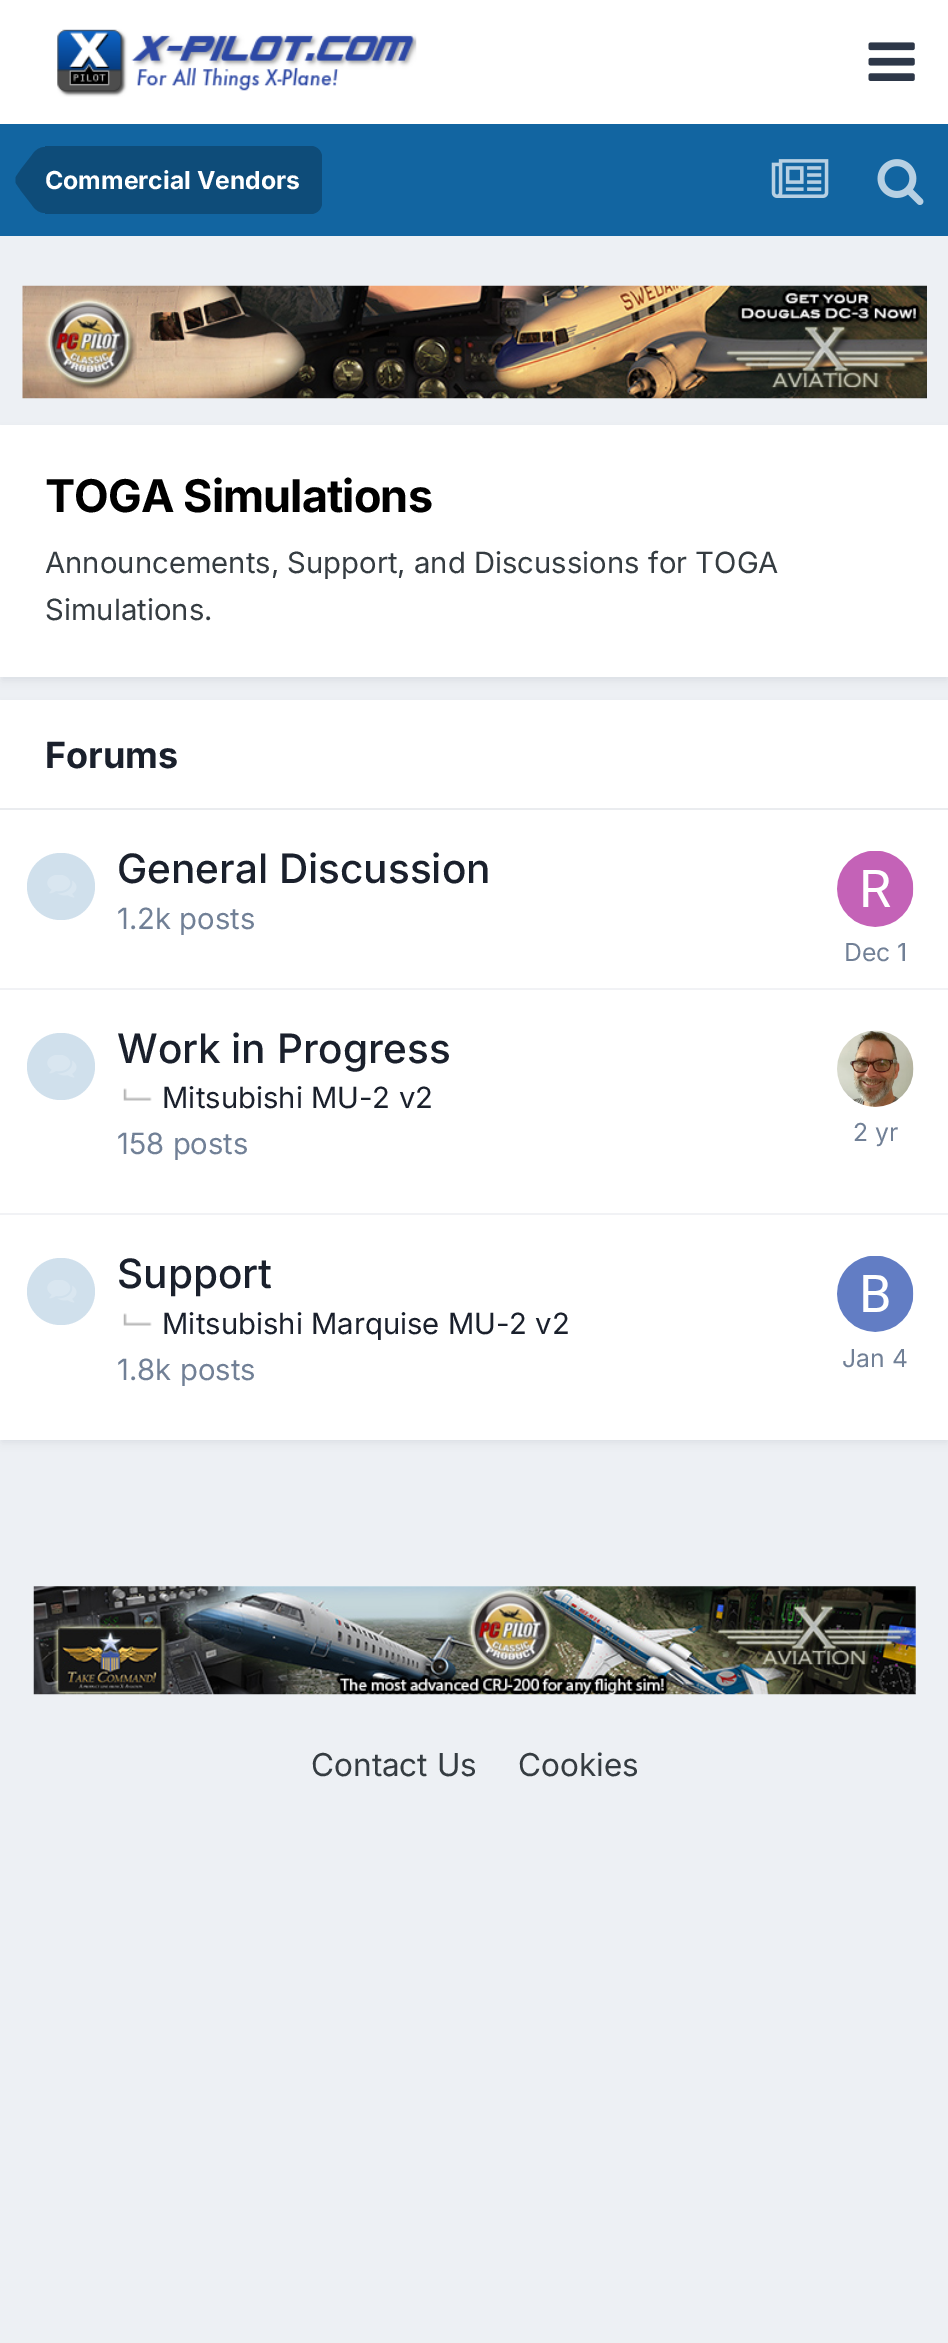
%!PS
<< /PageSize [948 2343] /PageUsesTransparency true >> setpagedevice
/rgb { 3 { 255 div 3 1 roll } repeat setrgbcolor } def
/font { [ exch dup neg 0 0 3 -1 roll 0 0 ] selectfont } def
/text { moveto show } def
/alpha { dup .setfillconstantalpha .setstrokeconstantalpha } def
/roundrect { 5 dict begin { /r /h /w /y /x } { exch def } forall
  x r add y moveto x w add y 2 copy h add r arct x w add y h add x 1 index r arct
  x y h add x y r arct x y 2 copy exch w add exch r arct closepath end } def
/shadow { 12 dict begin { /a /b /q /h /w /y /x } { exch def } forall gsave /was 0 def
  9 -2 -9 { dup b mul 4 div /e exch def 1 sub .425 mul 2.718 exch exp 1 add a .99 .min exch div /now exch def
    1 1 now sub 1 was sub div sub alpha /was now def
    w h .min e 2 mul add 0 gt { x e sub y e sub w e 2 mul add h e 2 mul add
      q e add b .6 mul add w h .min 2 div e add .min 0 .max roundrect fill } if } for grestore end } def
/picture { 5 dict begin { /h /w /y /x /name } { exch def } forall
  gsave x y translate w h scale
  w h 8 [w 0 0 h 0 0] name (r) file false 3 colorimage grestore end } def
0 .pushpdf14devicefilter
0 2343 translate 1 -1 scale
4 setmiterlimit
237 240 244 rgb
0 0 948 2343 rectfill
255 255 255 rgb
0 0 948 124 rectfill
(img_01.rgb) 57 29 360 68 picture
(img_02.rgb) 868 42 47 39 picture
18 101 161 rgb
0 124 948 112 rectfill
14 76 121 rgb
45 146 moveto 266 0 rlineto 6 0 11 5 11 11 rcurveto 0 46 rlineto 0 6 -5 11 -11 11 rcurveto -266 0 rlineto closepath fill
45 180 moveto 0 33 rlineto -5 0 -9.5 -2.5 -13 -8 rcurveto -10.5 -13.5 rlineto -5.5 -8 rlineto -0.5 -1.5 -0.5 -2.5 -0.5 -3.5 rcurveto closepath fill
45 180 moveto -29.5 0 rlineto 0 -1 0 -2 0.5 -3.5 rcurveto 5.5 -8 rlineto 10.5 -13.5 rlineto 3.5 -5.5 8 -8 13 -8 rcurveto closepath fill
(img_03.rgb) 771 159 58 39 picture
(img_04.rgb) 877 159 47 46 picture
(img_05.rgb) 22 285 905 114 picture
45 55 72 rgb
2 432 945 248 0 4.5 0.1 shadow
255 255 255 rgb
0 425 948 252 rectfill
45 55 72 rgb
2 707 945 735 0 4.5 0.1 shadow
255 255 255 rgb
0 700 948 740 rectfill
234 236 239 rgb
0 808 948 2 rectfill
241 242 245 rgb
0 988 948 2 rectfill
208 224 236 rgb
27 853 68 67 33.5 roundrect fill
(img_06.rgb) 47 875 30 23 picture
(img_07.rgb) 837 851 77 76 picture
241 242 245 rgb
0 1213 948 2 rectfill
208 224 236 rgb
27 1033 68 67 33.5 roundrect fill
(img_06.rgb) 47 1055 30 23 picture
(img_08.rgb) 123 1088 29 13 picture
(img_09.rgb) 837 1030 77 77 picture
27 1258 68 67 33.5 roundrect fill
(img_06.rgb) 47 1280 30 23 picture
(img_08.rgb) 123 1313 29 13 picture
(img_10.rgb) 837 1256 77 76 picture
247 250 252 rgb
34 1586 882 108 rectfill
(img_11.rgb) 33 1586 883 109 picture
/Inter-Bold 24.75 font
255 255 255 rgb
(Commercial Vendors) 45 189 text
/Inter-Bold 45 font
0 0 0 rgb
45 512 moveto -0.9 0 (TOGA Simulations) ashow
/Inter-Regular 29.25 font
53 60 65 rgb
(Announcements, Support, and Discussions for TOGA) 45 573 text
(Simulations.) 45 620 text
/Inter-Bold 36 font
26 32 44 rgb
(Forums) 45 768 text
/Inter-Medium 40.5 font
(General Discussion) 117 883 text
/Inter-Regular 29.25 font
113 128 150 rgb
(1.2k posts) 117 929 text
/Inter-Regular 24.75 font
(Dec 1) 844 961 text
/Inter-Medium 40.5 font
26 32 44 rgb
(Work in Progress) 117 1063 text
/Inter-Regular 29.25 font
(Mitsubishi MU-2 v2) 162 1108 text
113 128 150 rgb
(158 posts) 117 1154 text
/Inter-Regular 24.75 font
(2 yr) 853 1141 text
/Inter-Medium 40.5 font
26 32 44 rgb
(Support) 117 1288 text
/Inter-Regular 29.25 font
(Mitsubishi Marquise MU-2 v2) 162 1334 text
113 128 150 rgb
(1.8k posts) 117 1380 text
/Inter-Regular 24.75 font
(Jan 4) 842 1367 text
/Inter-Regular 31.5 font
53 60 65 rgb
(Contact Us) 311 1776 text
(Cookies) 518 1776 text
.poppdf14devicefilter showpage
